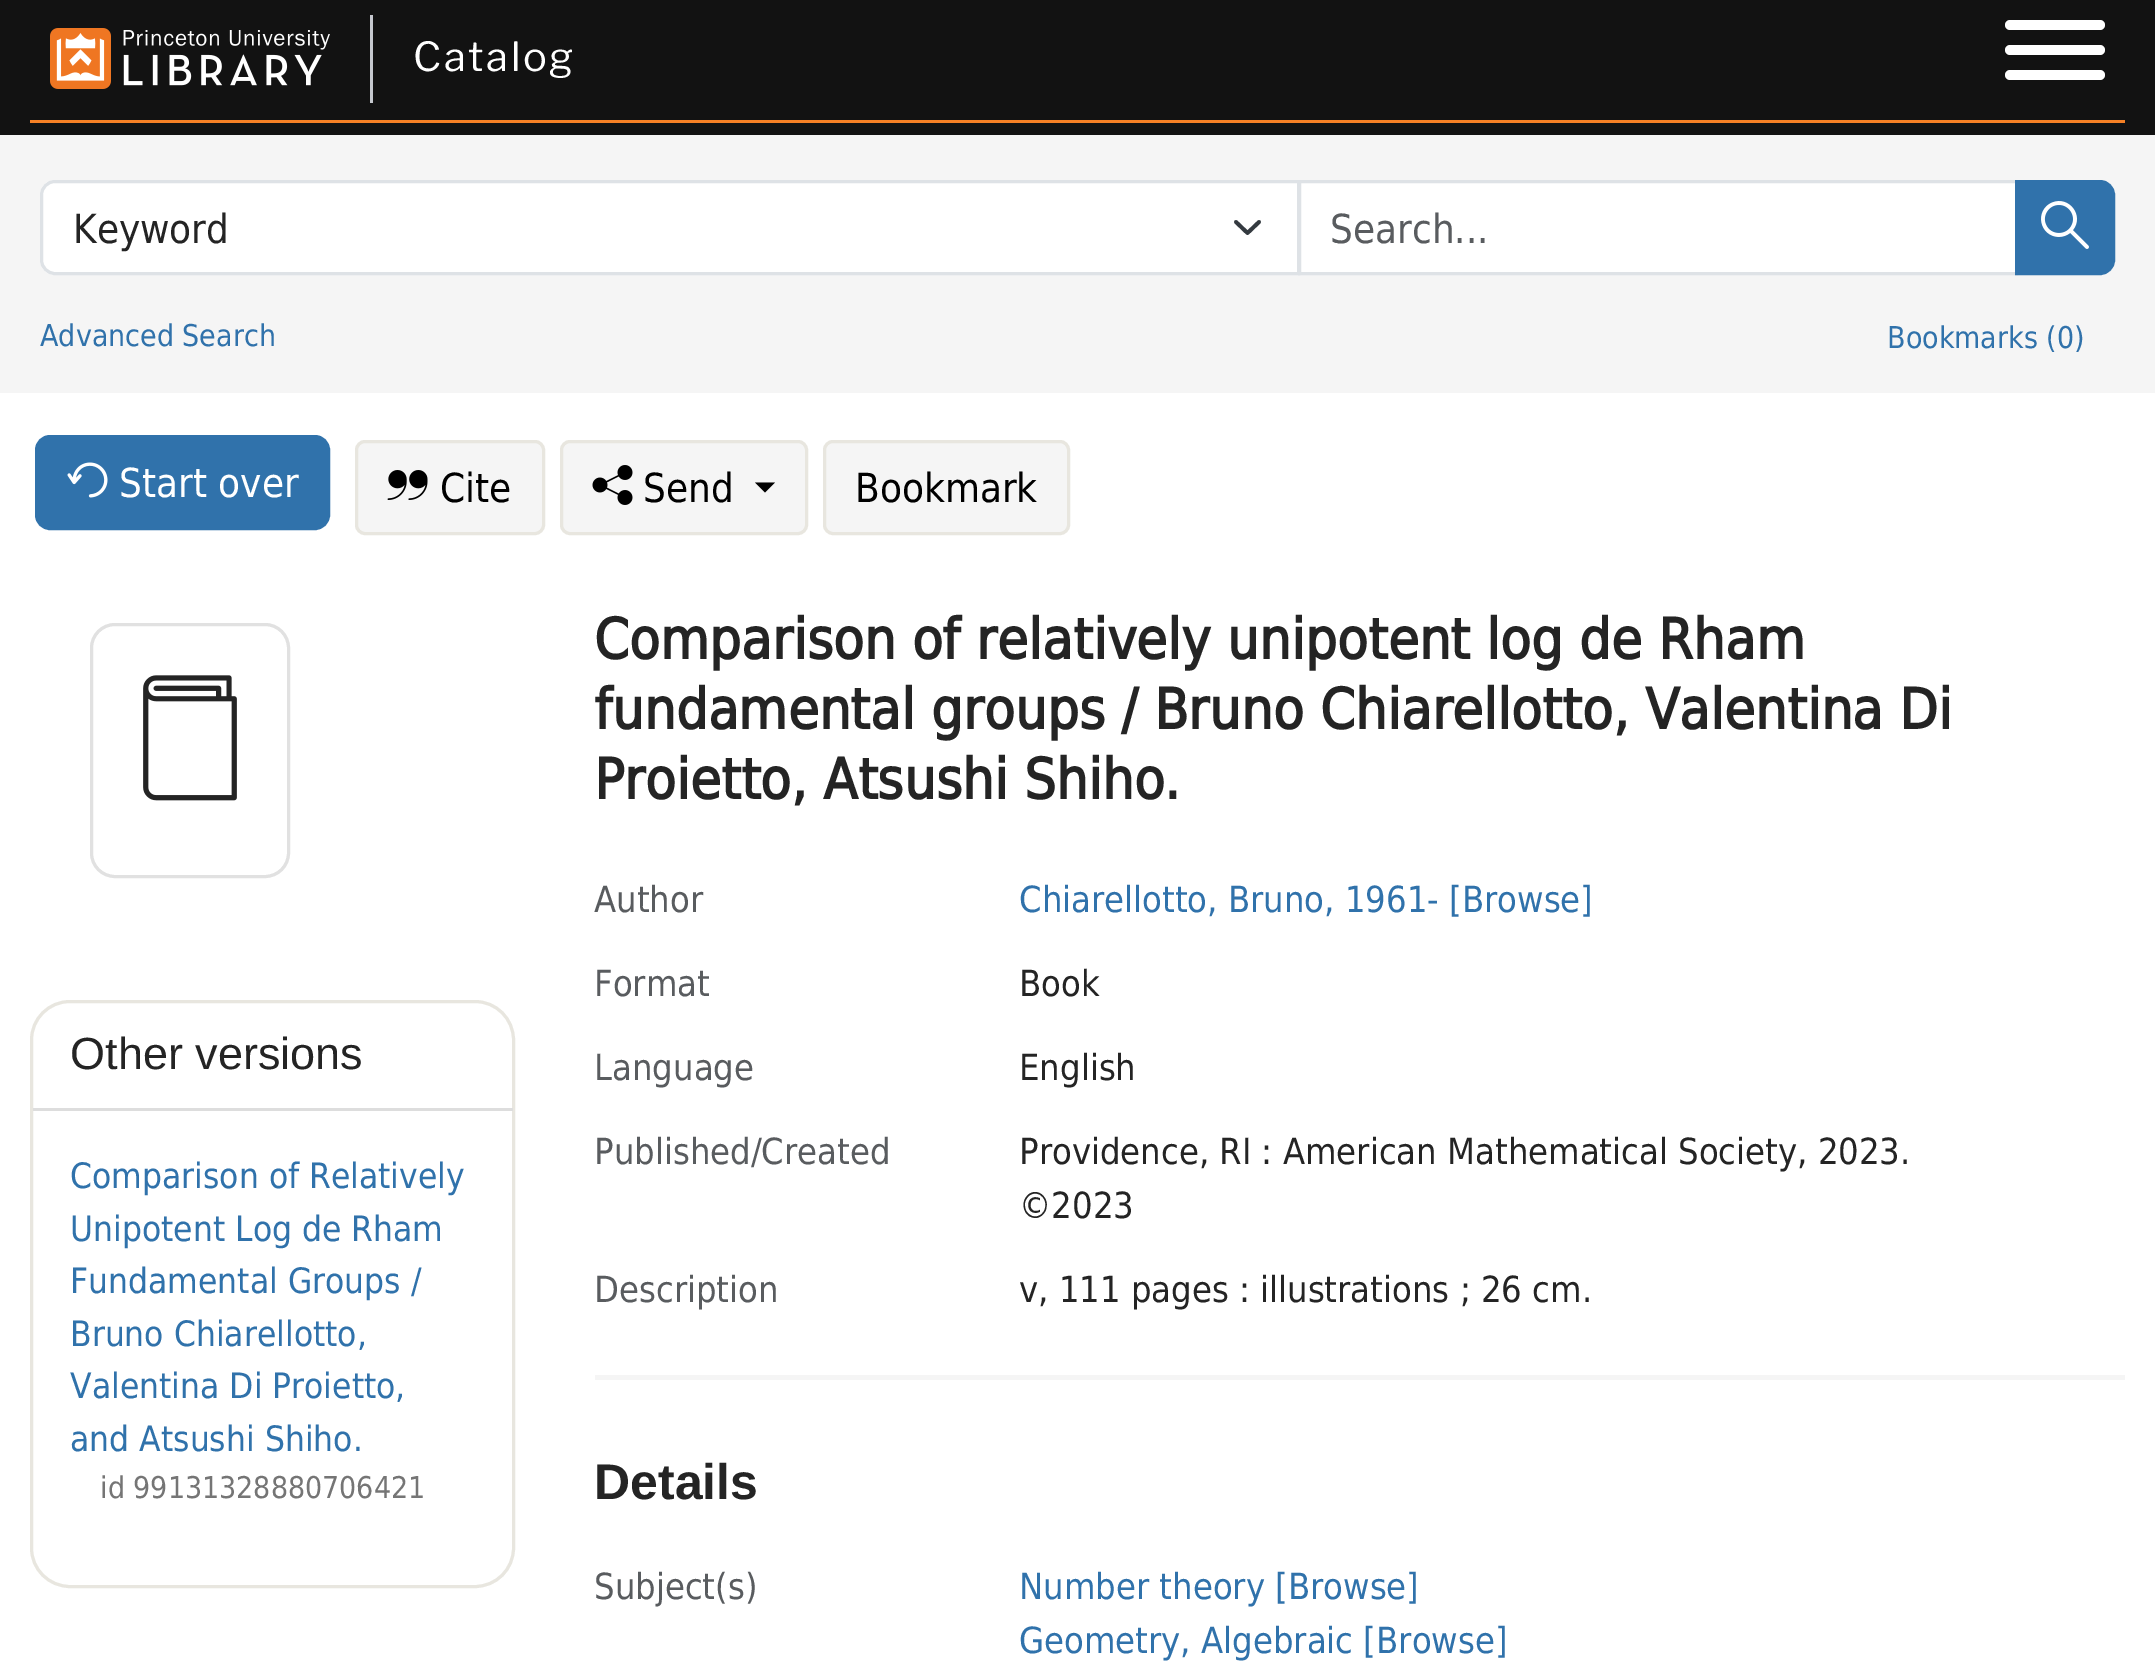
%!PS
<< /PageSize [2155 1676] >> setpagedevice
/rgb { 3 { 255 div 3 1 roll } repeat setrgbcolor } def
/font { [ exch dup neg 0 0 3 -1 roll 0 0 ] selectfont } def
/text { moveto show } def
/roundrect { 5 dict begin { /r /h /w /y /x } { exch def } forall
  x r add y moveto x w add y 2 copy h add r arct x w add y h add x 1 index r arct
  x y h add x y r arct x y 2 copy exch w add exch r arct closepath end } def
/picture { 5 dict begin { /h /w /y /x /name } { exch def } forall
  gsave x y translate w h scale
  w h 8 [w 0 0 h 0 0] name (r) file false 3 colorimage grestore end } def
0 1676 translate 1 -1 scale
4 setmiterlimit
245 245 245 rgb
0 0 2155 1676 rectfill
18 18 18 rgb
0 0 2155 135 rectfill
245 128 37 rgb
30 120 2095 3 rectfill
(img_01.rgb) 50 28 280 61 picture
197 200 206 rgb
370 15 3 88 rectfill
255 255 255 rgb
2005 45 100 10 5 roundrect fill
2005 20 100 10 5 roundrect fill
2005 70 100 10 5 roundrect fill
1299.5 181.5 moveto 717 0 rlineto 0 92 rlineto -717 0 rlineto closepath gsave fill grestore
222 226 230 rgb
3 setlinewidth
stroke
255 255 255 rgb
55 180 moveto 1245 0 rlineto 0 95 rlineto -1245 0 rlineto -8.5 0 -15 -6.5 -15 -15 rcurveto 0 -65 rlineto 0 -8.5 6.5 -15 15 -15 rcurveto closepath fill
52 58 64 rgb
3.8 setlinewidth
1 setlinecap
1 setlinejoin
1236 222 moveto 11.5 11 rlineto 11.5 -11 rlineto stroke
222 226 230 rgb
3 setlinewidth
0 setlinecap
0 setlinejoin
55 181.5 moveto 1243.5 0 rlineto 0 92 rlineto -1243.5 0 rlineto -7.5 0 -13.5 -6 -13.5 -13.5 rcurveto 0 -65 rlineto 0 -7.5 6 -13.5 13.5 -13.5 rcurveto closepath stroke
48 114 171 rgb
2016.5 181.5 moveto 83.5 0 rlineto 7.5 0 13.5 6 13.5 13.5 rcurveto 0 65 rlineto 0 7.5 -6 13.5 -13.5 13.5 rcurveto -83.5 0 rlineto closepath gsave fill grestore
stroke
(img_02.rgb) 2041 201 48 48 picture
255 255 255 rgb
0 393 2155 1283 rectfill
48 114 171 rgb
36.5 436.5 292 92 13.5 roundrect gsave fill grestore
stroke
(img_03.rgb) 67 462 41 36 picture
245 245 245 rgb
356.5 441.5 187 92 8.5 roundrect gsave fill grestore
232 230 223 rgb
stroke
(img_04.rgb) 387 470 41 30 picture
245 245 245 rgb
561.5 441.5 245 92 8.5 roundrect gsave fill grestore
232 230 223 rgb
stroke
(img_05.rgb) 592 465 41 40 picture
0 0 0 rgb
755 482.5 moveto 20 0 rlineto -10 10 rlineto closepath fill
245 245 245 rgb
824.5 441.5 244 92 8.5 roundrect gsave fill grestore
232 230 223 rgb
stroke
225 225 225 rgb
91.5 624.5 197 252 23.5 roundrect stroke
(img_06.rgb) 143 675 94 126 picture
245 245 245 rgb
595 1375 1530 5 rectfill
232 230 223 rgb
31.5 1001.5 482 585 38.5 roundrect stroke
221 221 221 rgb
33 1108 480 3 rectfill
/LibreFranklin-Regular 40 font
255 255 255 rgb
413 71 moveto 2.5 0 (Catalog) ashow
/DejaVuSans-Regular 40 font
36 36 36 rgb
(Keyword) 73 243 text
89 92 95 rgb
(Search...) 1330 243 text
/DejaVuSans-Regular 30 font
48 114 171 rgb
(Advanced Search) 40 346 text
(Bookmarks \(0\)) 1887 348 text
/DejaVuSans-Regular 40 font
255 255 255 rgb
(Start over) 119 497 text
0 0 0 rgb
(Cite) 440 502 text
(Send) 643 502 text
(Bookmark) 855 502 text
/DejaVuSans-Bold 56 font
36 36 36 rgb
(Comparison of relatively unipotent log de Rham) 594 659 text
(fundamental groups / Bruno Chiarellotto, Valentina Di) 594 729 text
(Proietto, Atsushi Shiho.) 594 799 text
/DejaVuSans-Regular 36 font
89 92 95 rgb
(Author) 594 912 text
48 114 171 rgb
(Chiarellotto, Bruno, 1961- [Browse]) 1019 912 text
89 92 95 rgb
(Format) 594 996 text
36 36 36 rgb
(Book) 1019 996 text
89 92 95 rgb
(Language) 594 1080 text
36 36 36 rgb
(English) 1019 1080 text
89 92 95 rgb
(Published/Created) 594 1164 text
36 36 36 rgb
(Providence, RI : American Mathematical Society, 2023.) 1019 1164 text
(©2023) 1019 1218 text
89 92 95 rgb
(Description) 594 1302 text
36 36 36 rgb
(v, 111 pages : illustrations ; 26 cm.) 1019 1302 text
/LiberationSans-Bold 50 font
(Details) 594 1499 text
/DejaVuSans-Regular 36 font
89 92 95 rgb
(Subject\(s\)) 594 1599 text
48 114 171 rgb
(Number theory [Browse]) 1019 1599 text
(Geometry, Algebraic [Browse]) 1019 1653 text
/LiberationSans-Regular 45 font
36 36 36 rgb
(Other versions) 70 1069 text
/DejaVuSans-Regular 35 font
48 114 171 rgb
(Comparison of Relatively) 70 1188 text
(Unipotent Log de Rham) 70 1241 text
(Fundamental Groups /) 70 1293 text
(Bruno Chiarellotto,) 70 1346 text
(Valentina Di Proietto,) 70 1398 text
(and Atsushi Shiho.) 70 1451 text
/DejaVuSans-Regular 30 font
117 117 117 rgb
(id 99131328880706421) 100 1498 text
showpage
